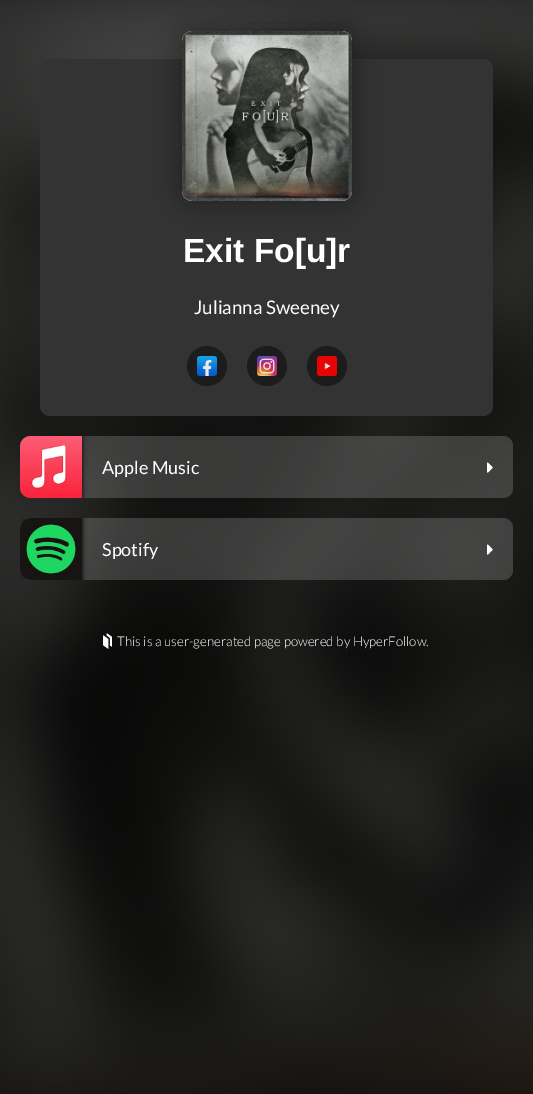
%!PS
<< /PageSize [533 1094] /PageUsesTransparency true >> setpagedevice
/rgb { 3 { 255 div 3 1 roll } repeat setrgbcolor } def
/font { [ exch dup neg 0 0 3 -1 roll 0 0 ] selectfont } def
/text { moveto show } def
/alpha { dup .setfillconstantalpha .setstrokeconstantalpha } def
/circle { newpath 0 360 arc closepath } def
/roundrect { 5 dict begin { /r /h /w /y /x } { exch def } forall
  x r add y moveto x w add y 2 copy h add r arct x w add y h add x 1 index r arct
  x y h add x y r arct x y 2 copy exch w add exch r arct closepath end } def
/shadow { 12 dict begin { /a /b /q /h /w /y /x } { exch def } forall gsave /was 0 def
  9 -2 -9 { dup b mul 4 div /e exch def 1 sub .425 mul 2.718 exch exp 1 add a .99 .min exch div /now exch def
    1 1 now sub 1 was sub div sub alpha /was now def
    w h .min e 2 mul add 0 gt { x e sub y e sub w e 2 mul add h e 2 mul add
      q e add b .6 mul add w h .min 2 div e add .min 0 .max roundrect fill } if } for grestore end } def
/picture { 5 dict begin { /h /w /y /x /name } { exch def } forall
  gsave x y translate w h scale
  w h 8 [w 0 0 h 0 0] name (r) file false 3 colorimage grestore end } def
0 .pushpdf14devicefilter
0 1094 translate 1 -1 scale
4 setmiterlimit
0 0 0 rgb
0 0 533 1094 rectfill
(img_01.rgb) 0 0 533 1094 picture
51 51 51 rgb
40 59 453 357 10 roundrect fill
0 0 0 rgb
182 31 170 170 10 12.5 0.35 shadow
204 204 204 rgb
182 31 170 170 10 roundrect fill
(img_02.rgb) 182 31 170 170 picture
28 28 28 rgb
207 366 20 circle fill
(img_03.rgb) 197 356 20 20 picture
267 366 20 circle fill
(img_04.rgb) 257 356 20 20 picture
327 366 20 circle fill
(img_05.rgb) 317 356 20 20 picture
0.17 alpha
255 255 255 rgb
20 436 493 62 10 roundrect fill
gsave
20 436 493 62 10 roundrect clip newpath
1 alpha
0 0 0 rgb
20 436 62 62 0 2.5 1 shadow
grestore
1 alpha
(img_06.rgb) 20 436 62 62 picture
(img_07.rgb) 487 462 6 11 picture
0.17 alpha
20 518 493 62 10 roundrect fill
gsave
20 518 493 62 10 roundrect clip newpath
1 alpha
0 0 0 rgb
20 518 62 62 0 2.5 1 shadow
grestore
1 alpha
(img_08.rgb) 20 518 62 62 picture
(img_09.rgb) 487 544 6 11 picture
(img_10.rgb) 103 633 9 16 picture
/LiberationSans-Bold 33.5 font
(Exit Fo[u]r) 183 262 text
/Lato-Regular 18.75 font
(Julianna Sweeney) 194 314 text
/Lato-Regular 18 font
(Apple Music) 102 474 text
(Spotify) 102 556 text
/Lato-Light 13.3 font
(This is a user-generated page powered by HyperFollow.) 117 646 text
.poppdf14devicefilter showpage
